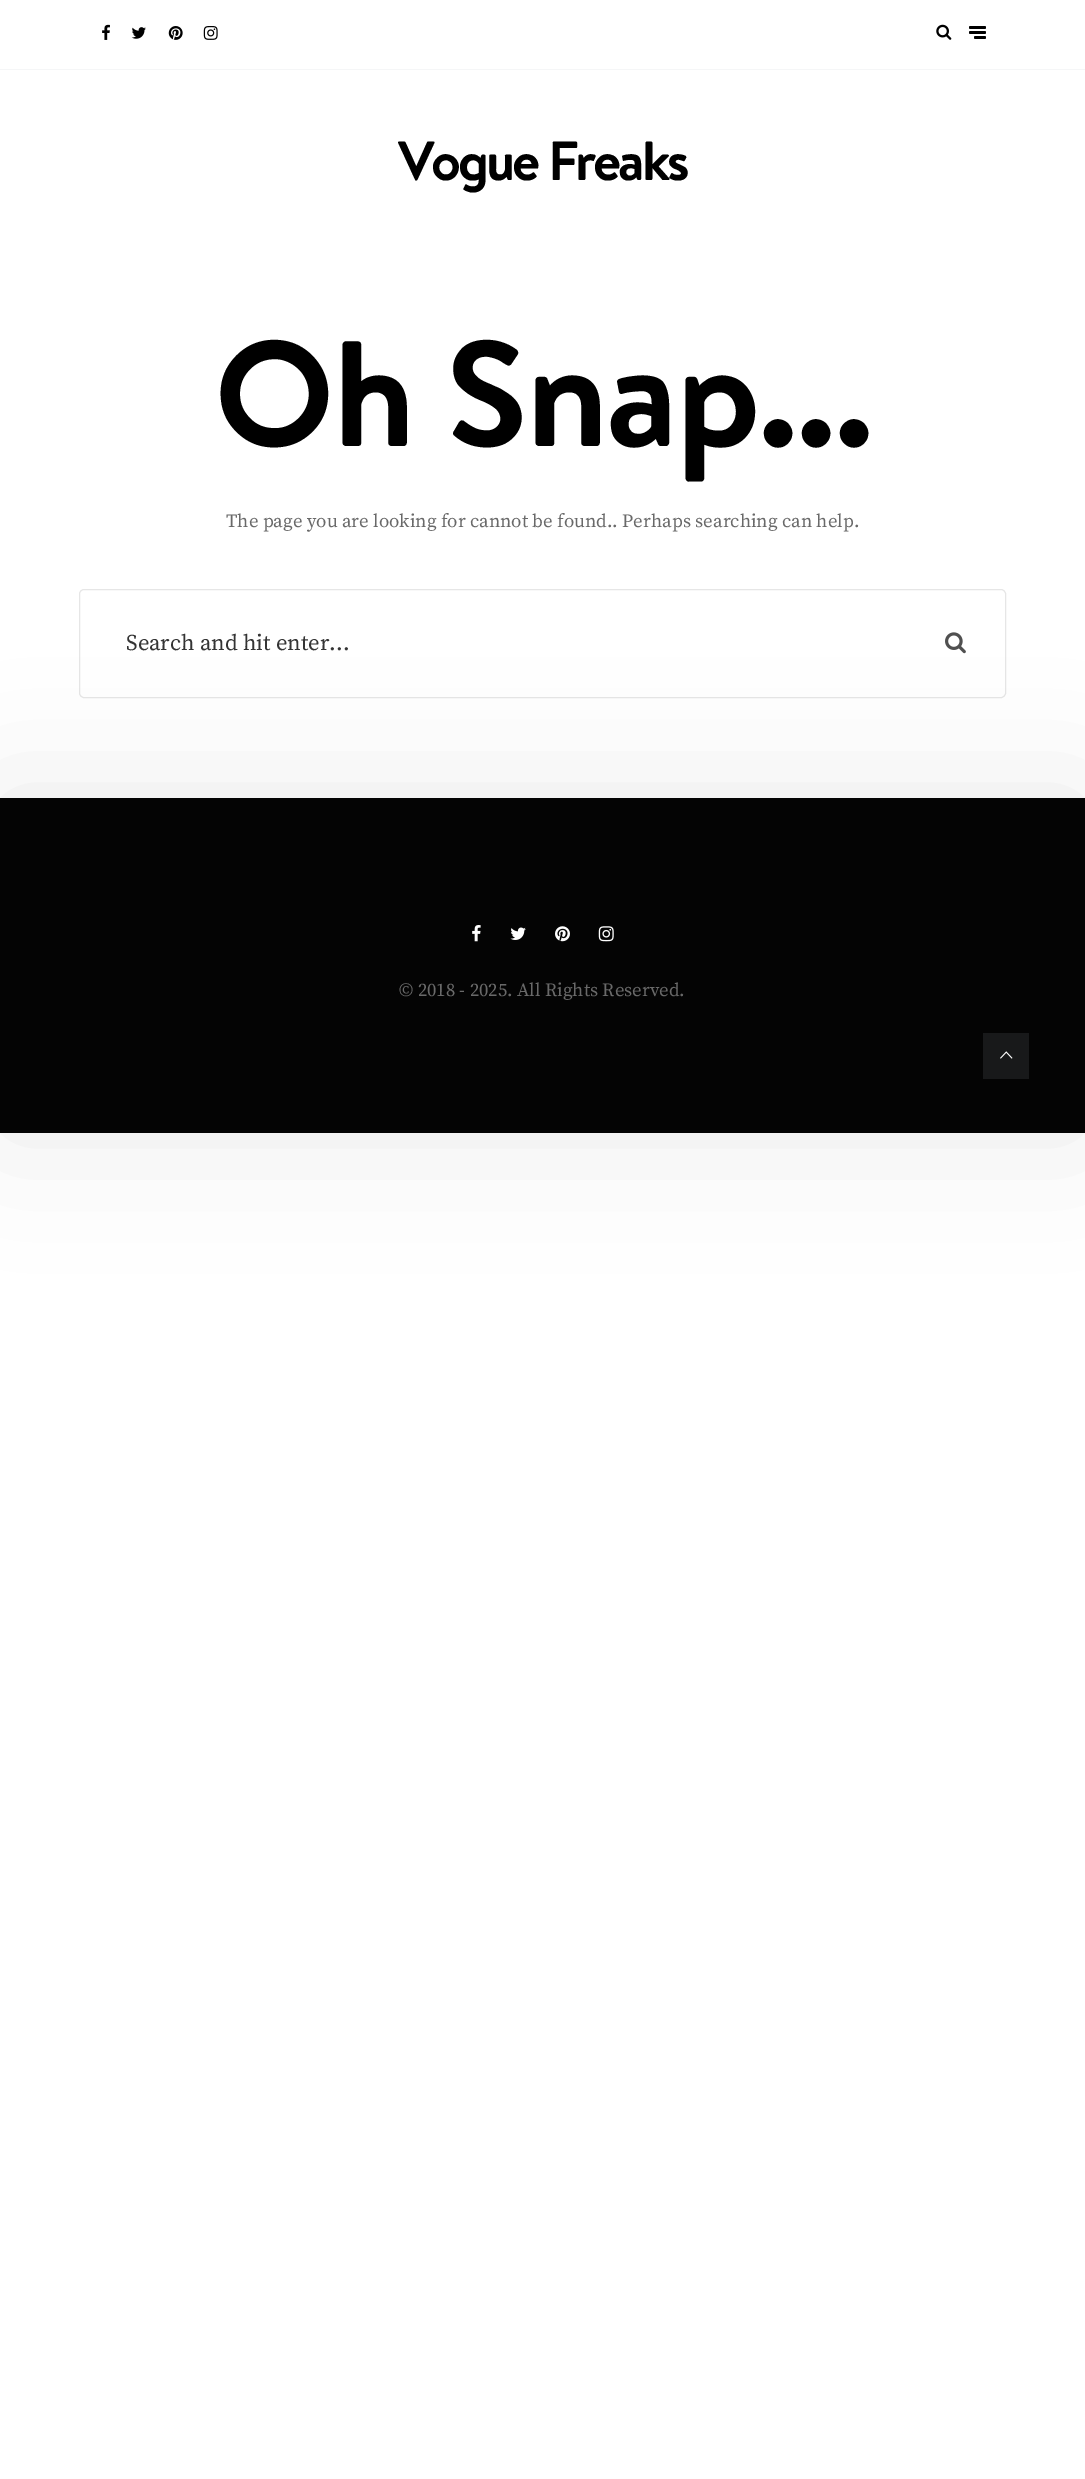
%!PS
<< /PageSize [1085 2479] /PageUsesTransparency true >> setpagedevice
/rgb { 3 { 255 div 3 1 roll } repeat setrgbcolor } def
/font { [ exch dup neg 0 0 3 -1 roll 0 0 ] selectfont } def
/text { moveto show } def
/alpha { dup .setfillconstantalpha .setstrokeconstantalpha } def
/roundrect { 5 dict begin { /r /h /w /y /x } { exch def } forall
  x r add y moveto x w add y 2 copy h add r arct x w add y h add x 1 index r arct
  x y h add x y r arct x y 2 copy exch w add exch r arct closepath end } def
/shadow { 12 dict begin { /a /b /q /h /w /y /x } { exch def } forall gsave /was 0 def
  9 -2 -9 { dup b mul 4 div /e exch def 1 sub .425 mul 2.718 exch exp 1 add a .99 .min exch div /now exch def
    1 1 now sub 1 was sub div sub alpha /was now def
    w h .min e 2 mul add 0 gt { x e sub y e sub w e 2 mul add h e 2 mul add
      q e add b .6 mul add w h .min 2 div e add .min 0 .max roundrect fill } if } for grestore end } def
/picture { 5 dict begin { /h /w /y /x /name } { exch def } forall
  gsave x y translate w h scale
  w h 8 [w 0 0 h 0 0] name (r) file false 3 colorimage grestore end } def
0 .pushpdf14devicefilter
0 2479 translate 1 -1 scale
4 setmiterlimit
255 255 255 rgb
0 0 1085 2479 rectfill
245 246 247 rgb
0 69 1085 1 rectfill
(img_01.rgb) 102 24 8 16 picture
(img_02.rgb) 131 27 15 12 picture
(img_03.rgb) 168 26 15 14 picture
(img_04.rgb) 203 26 15 14 picture
(img_05.rgb) 936 24 16 16 picture
0 0 0 rgb
969 26 17 3 1.5 roundrect fill
969 31 17 3 1.5 roundrect fill
974 36 12 3 1.5 roundrect fill
230 230 230 rgb
79.5 589.5 926 108 4.5 roundrect stroke
(img_06.rgb) 945 632 21 22 picture
0 0 0 rgb
0 798 1085 335 0 62.5 0.08 shadow
4 4 4 rgb
0 798 1085 335 rectfill
(img_07.rgb) 472 925 9 17 picture
(img_08.rgb) 510 927 16 13 picture
(img_09.rgb) 555 926 15 16 picture
(img_10.rgb) 598 926 16 16 picture
24 25 26 rgb
983 1033 46 46 rectfill
(img_11.rgb) 1000 1051 13 8 picture
/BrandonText-Bold 55 font
0 0 0 rgb
398 180 moveto -3.1 0 (Vogue Freaks) ashow
/BrandonText-Bold 150 font
214 446 moveto -2.5 0 (Oh Snap...) ashow
/SourceSerifPro-Regular 18.75 font
105 105 105 rgb
(The page you are looking for cannot be found.. Perhaps searching can help.) 226 527 text
/SourceSerifPro-Regular 22.5 font
52 52 52 rgb
(Search and hit enter...) 126 650 text
/SourceSerifPro-Regular 18.75 font
105 105 105 rgb
(© 2018 - 2025. All Rights Reserved.) 399 996 text
.poppdf14devicefilter showpage
